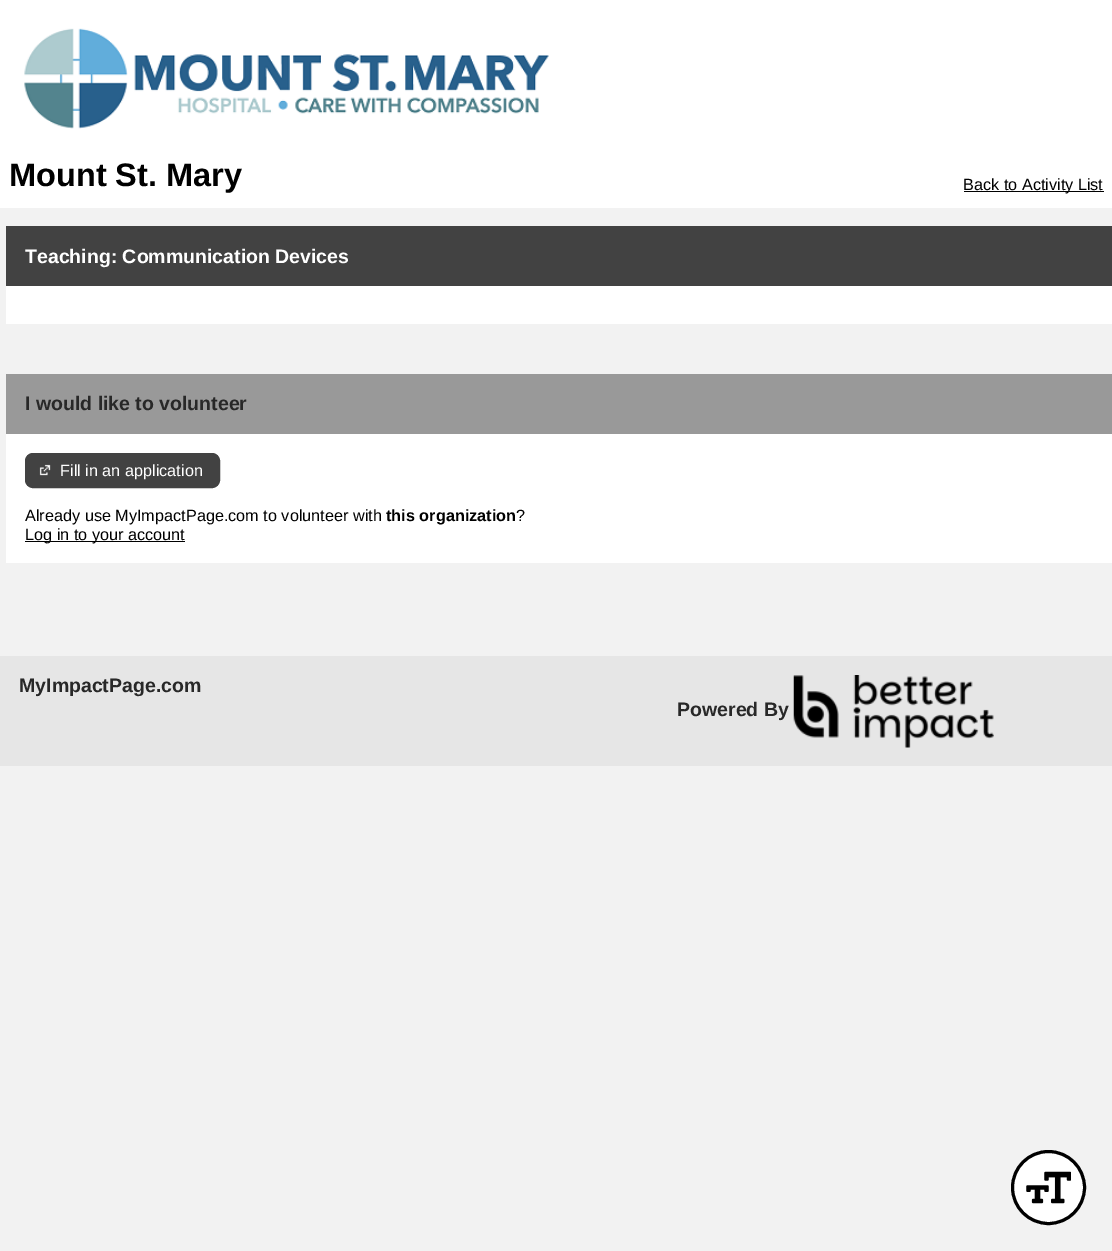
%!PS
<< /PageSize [1112 1251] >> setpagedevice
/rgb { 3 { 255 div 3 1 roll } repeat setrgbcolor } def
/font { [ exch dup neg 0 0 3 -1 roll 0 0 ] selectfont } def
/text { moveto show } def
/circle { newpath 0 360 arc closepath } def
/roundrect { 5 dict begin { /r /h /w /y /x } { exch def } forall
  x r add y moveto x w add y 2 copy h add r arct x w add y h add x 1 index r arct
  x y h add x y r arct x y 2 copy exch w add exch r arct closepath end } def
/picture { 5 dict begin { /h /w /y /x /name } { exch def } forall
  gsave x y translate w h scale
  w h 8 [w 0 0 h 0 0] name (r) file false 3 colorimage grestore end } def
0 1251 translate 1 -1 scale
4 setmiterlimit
242 242 242 rgb
0 0 1112 1251 rectfill
255 255 255 rgb
0 0 1112 208 rectfill
(img_01.rgb) 24 28 525 101 picture
0 0 0 rgb
964 191 140 1 rectfill
66 66 66 rgb
6 226 1106 60 rectfill
255 255 255 rgb
6 286 1106 38 rectfill
153 153 153 rgb
6 374 1106 60 rectfill
255 255 255 rgb
6 434 1106 129 rectfill
66 66 66 rgb
25.5 453.5 194 34 7.5 roundrect gsave fill grestore
stroke
(img_02.rgb) 39 464 12 12 picture
0 0 0 rgb
25 541 160 1 rectfill
230 230 230 rgb
0 656 1112 110 rectfill
(img_03.rgb) 793 675 201 73 picture
255 255 255 rgb
1048.5 1187.5 36 circle gsave fill grestore
0 0 0 rgb
3 setlinewidth
stroke
(img_04.rgb) 1026 1171 45 33 picture
/LiberationSans-Bold 32.5 font
(Mount St. Mary) 9 186 text
/LiberationSans-Regular 16.25 font
(Back to Activity List) 963 190 text
/LiberationSans-Bold 19.5 font
255 255 255 rgb
(Teaching: Communication Devices) 25 263 text
40 40 40 rgb
(I would like to volunteer) 25 410 text
/LiberationSans-Regular 16.25 font
255 255 255 rgb
(Fill in an application) 60 476 text
0 0 0 rgb
(Already use MyImpactPage.com to volunteer with) 25 521 text
/LiberationSans-Bold 16.25 font
(this organization) 386 521 text
/LiberationSans-Regular 16.25 font
(?) 516 521 text
(Log in to your account) 25 540 text
/LiberationSans-Bold 19.5 font
40 40 40 rgb
(MyImpactPage.com) 19 692 text
(Powered By) 677 716 text
showpage
